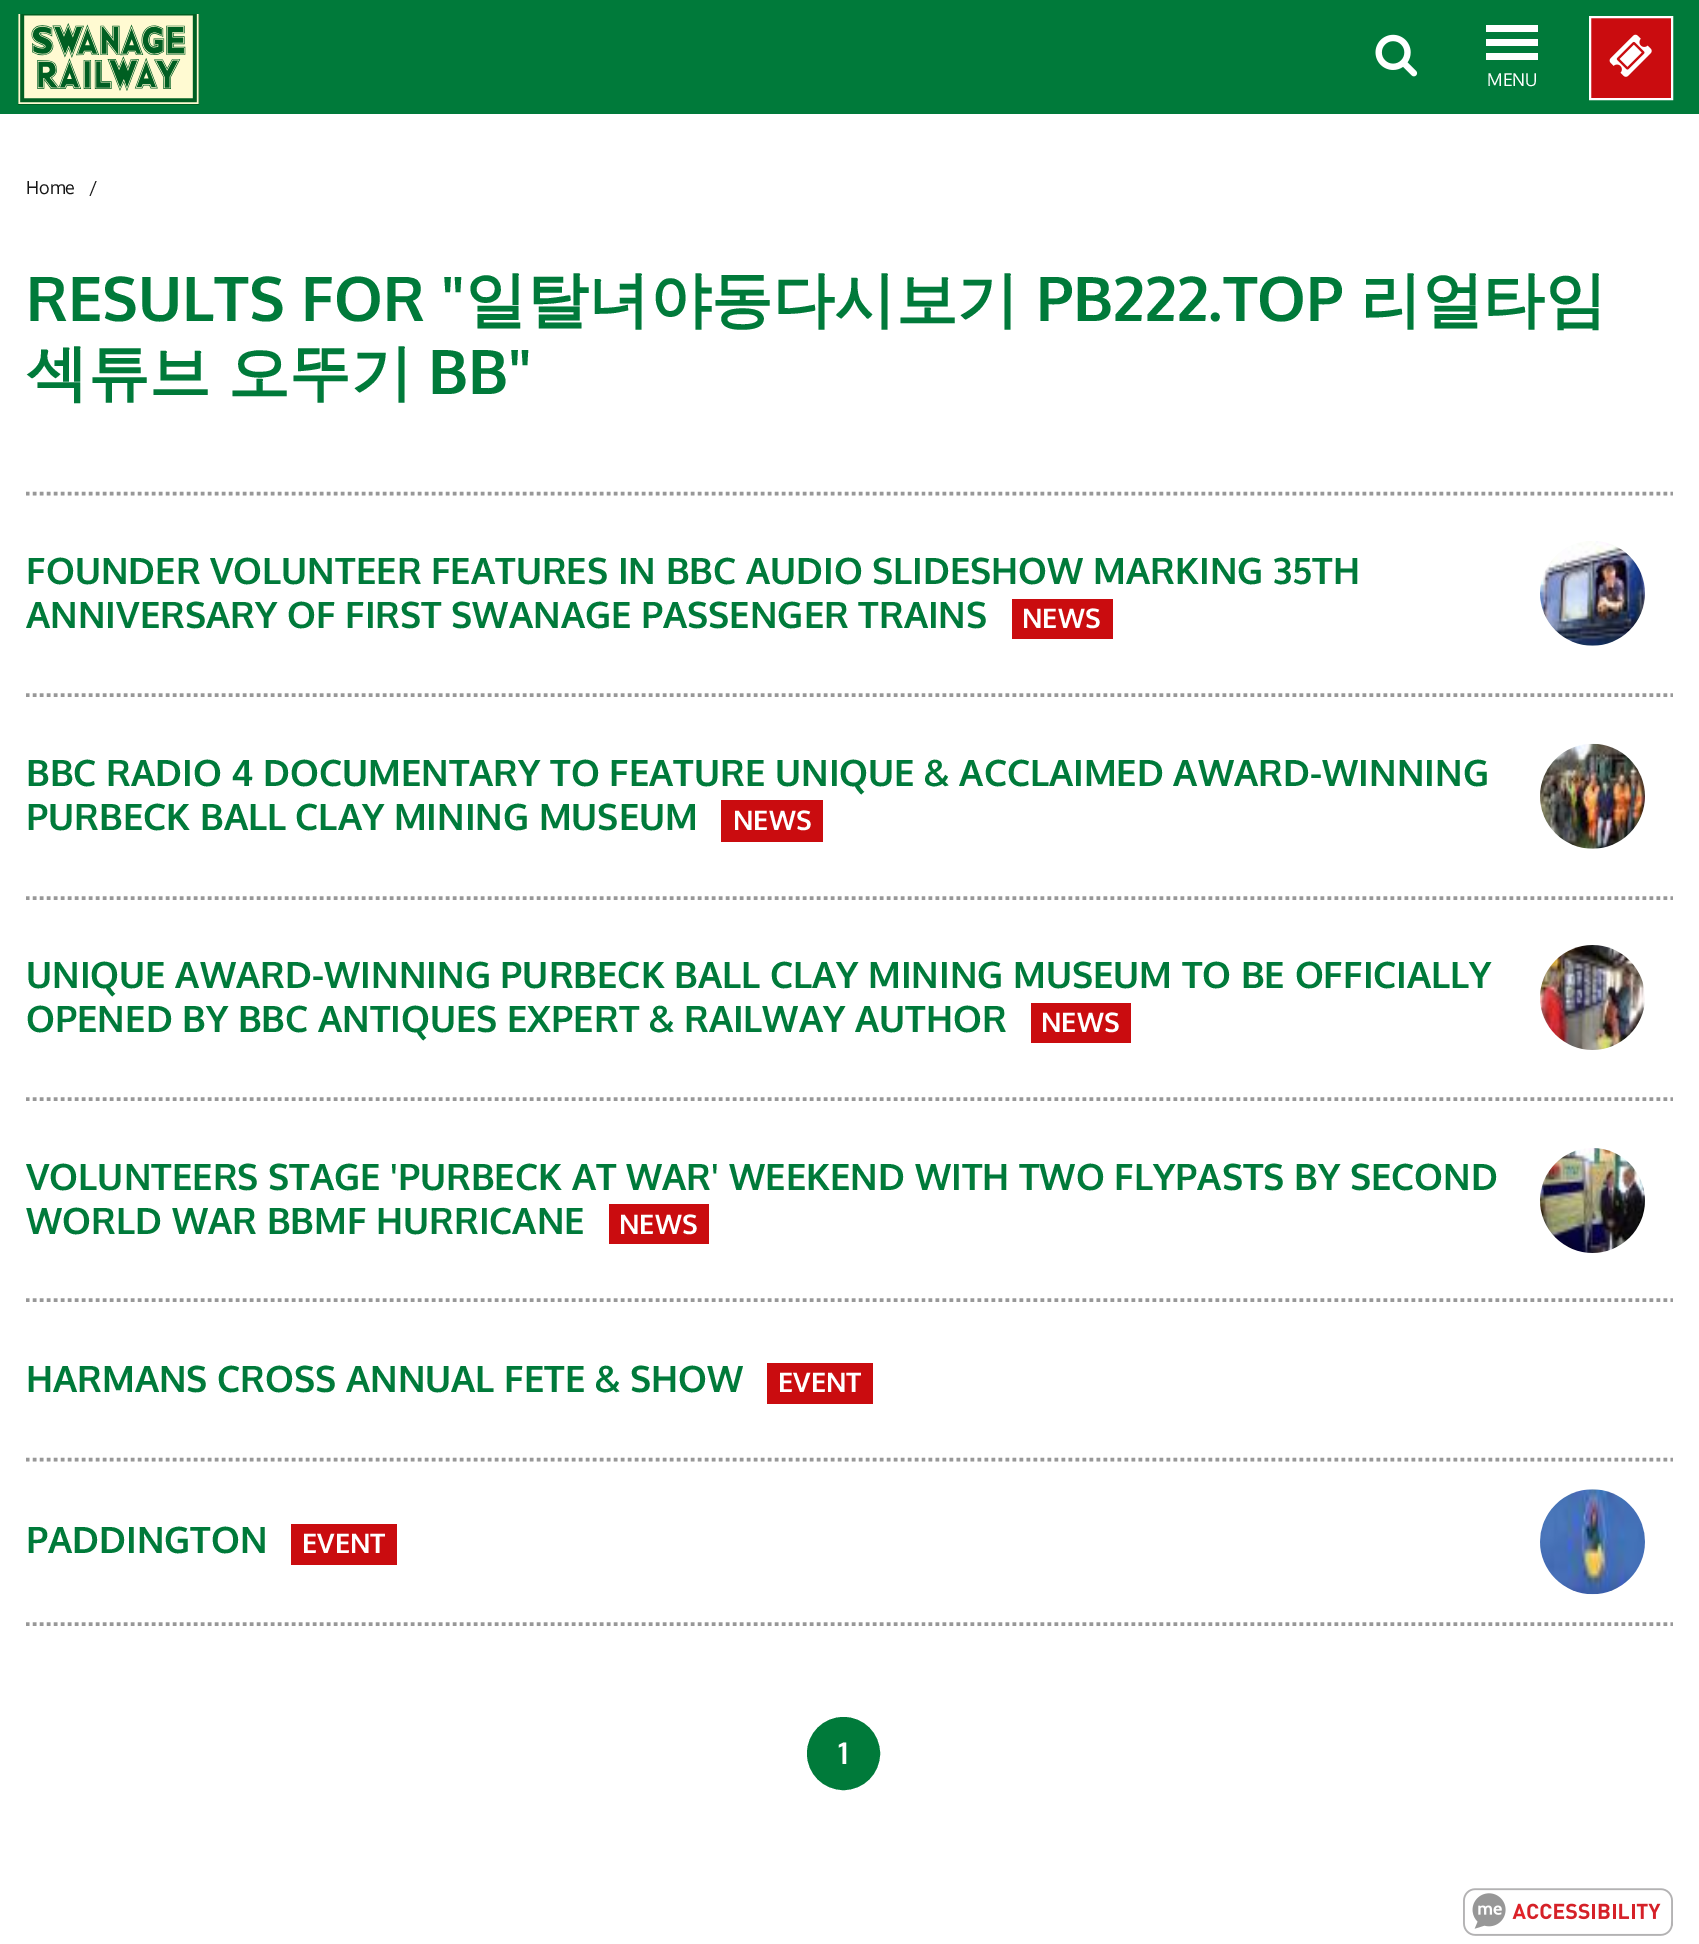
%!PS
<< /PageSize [1699 1944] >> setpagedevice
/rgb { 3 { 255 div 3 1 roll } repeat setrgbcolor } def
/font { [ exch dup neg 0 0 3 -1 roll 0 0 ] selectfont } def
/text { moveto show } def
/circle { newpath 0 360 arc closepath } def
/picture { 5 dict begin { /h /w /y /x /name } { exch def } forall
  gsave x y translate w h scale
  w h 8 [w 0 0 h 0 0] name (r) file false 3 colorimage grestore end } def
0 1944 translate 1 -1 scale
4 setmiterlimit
255 255 255 rgb
0 0 1699 1944 rectfill
0 122 58 rgb
0 0 1699 114 rectfill
(img_01.rgb) 18 14 182 91 picture
(img_02.rgb) 1375 34 43 43 picture
202 12 15 rgb
1590 17 moveto 82 0 rlineto 0 82 rlineto -82 0 rlineto closepath gsave fill grestore
255 255 255 rgb
2 setlinewidth
stroke
(img_03.rgb) 1609 34 43 43 picture
1486 25 52 7 rectfill
1486 39 52 7 rectfill
1486 53 52 7 rectfill
152 152 152 rgb
3.5 setlinewidth
[3.5 3.5] 0 setdash
26 493.5 moveto 1647 0 rlineto stroke
202 12 15 rgb
1012 599 101 40 rectfill
(img_04.rgb) 1540 541 105 105 picture
152 152 152 rgb
26 695 moveto 1647 0 rlineto stroke
202 12 15 rgb
721 800 102 42 rectfill
(img_05.rgb) 1540 743 105 106 picture
152 152 152 rgb
26 898 moveto 1647 0 rlineto stroke
202 12 15 rgb
1031 1003 100 40 rectfill
(img_06.rgb) 1540 945 105 105 picture
152 152 152 rgb
26 1099 moveto 1647 0 rlineto stroke
202 12 15 rgb
609 1204 100 40 rectfill
(img_07.rgb) 1540 1148 105 105 picture
152 152 152 rgb
26 1300 moveto 1647 0 rlineto stroke
202 12 15 rgb
767 1363 106 41 rectfill
152 152 152 rgb
26 1459.5 moveto 1647 0 rlineto stroke
202 12 15 rgb
291 1524 106 41 rectfill
(img_08.rgb) 1540 1489 105 106 picture
152 152 152 rgb
26 1624 moveto 1647 0 rlineto stroke
0 122 58 rgb
843.5 1753.5 34 circle gsave fill grestore
5 setlinewidth
[] 0 setdash
stroke
(img_09.rgb) 1463 1888 210 48 picture
/Oxygen-Regular 17.5 font
255 255 255 rgb
(MENU) 1487 86 text
/Oxygen-Regular 18 font
23 23 23 rgb
(Home) 26 194 text
(/) 89 194 text
/Oxygen-Bold 61.5 font
0 122 58 rgb
(RESULTS FOR ") 26 321 text
/WenQuanYiZenHei-Bold 61.5 font
(일탈녀야동다시보기) 465 321 text
/Oxygen-Bold 61.5 font
(PB222.TOP) 1036 321 text
/WenQuanYiZenHei-Bold 61.5 font
(리얼타임) 1360 321 text
26 394 moveto -1 0 32 (섹튜브 오뚜기) widthshow
/Oxygen-Bold 61.5 font
(BB") 428 394 text
/Oxygen-Bold 36.4 font
(FOUNDER VOLUNTEER FEATURES IN BBC AUDIO SLIDESHOW MARKING 35TH) 26 584 text
(ANNIVERSARY OF FIRST SWANAGE PASSENGER TRAINS) 26 628 text
/Oxygen-Bold 27 font
255 255 255 rgb
(NEWS) 1022 628 text
/Oxygen-Bold 36.4 font
0 122 58 rgb
(BBC RADIO 4 DOCUMENTARY TO FEATURE UNIQUE & ACCLAIMED AWARD-WINNING) 26 786 text
(PURBECK BALL CLAY MINING MUSEUM) 26 830 text
/Oxygen-Bold 27 font
255 255 255 rgb
(NEWS) 733 830 text
/Oxygen-Bold 36.4 font
0 122 58 rgb
(UNIQUE AWARD-WINNING PURBECK BALL CLAY MINING MUSEUM TO BE OFFICIALLY) 26 988 text
(OPENED BY BBC ANTIQUES EXPERT & RAILWAY AUTHOR) 26 1032 text
/Oxygen-Bold 27 font
255 255 255 rgb
(NEWS) 1041 1032 text
/Oxygen-Bold 36.4 font
0 122 58 rgb
(VOLUNTEERS STAGE 'PURBECK AT WAR' WEEKEND WITH TWO FLYPASTS BY SECOND) 26 1190 text
(WORLD WAR BBMF HURRICANE) 26 1234 text
/Oxygen-Bold 27 font
255 255 255 rgb
(NEWS) 619 1234 text
/Oxygen-Bold 36.4 font
0 122 58 rgb
(HARMANS CROSS ANNUAL FETE & SHOW) 26 1392 text
/Oxygen-Bold 27 font
255 255 255 rgb
(EVENT) 778 1392 text
/Oxygen-Bold 36.4 font
0 122 58 rgb
(PADDINGTON) 26 1553 text
/Oxygen-Bold 27 font
255 255 255 rgb
(EVENT) 302 1553 text
/Oxygen-Bold 30 font
(1) 838 1764 text
showpage
